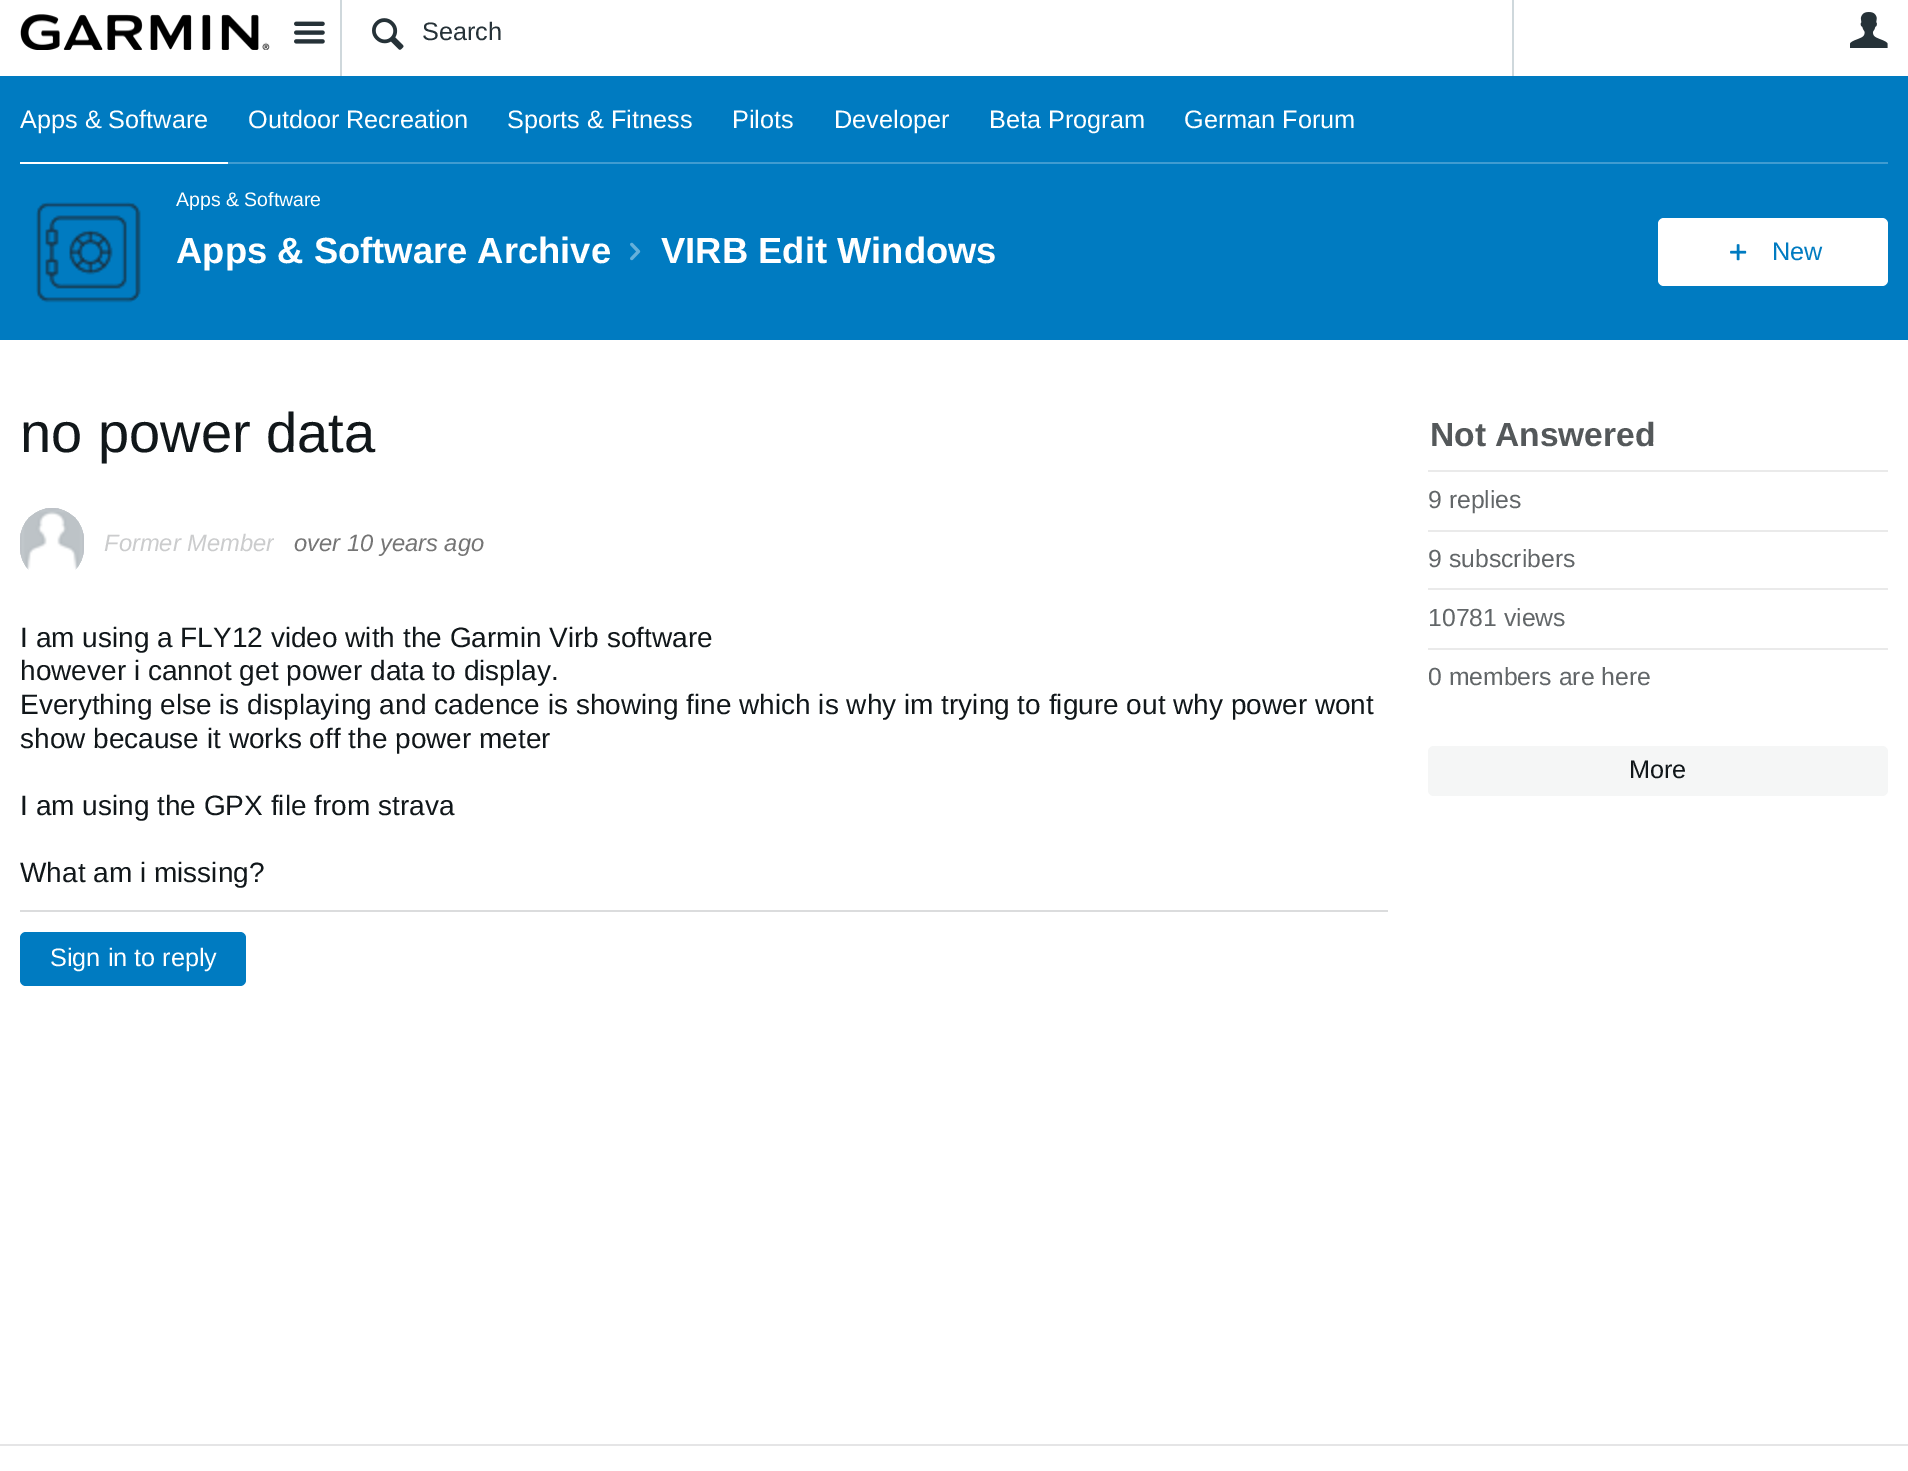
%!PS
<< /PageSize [1908 1471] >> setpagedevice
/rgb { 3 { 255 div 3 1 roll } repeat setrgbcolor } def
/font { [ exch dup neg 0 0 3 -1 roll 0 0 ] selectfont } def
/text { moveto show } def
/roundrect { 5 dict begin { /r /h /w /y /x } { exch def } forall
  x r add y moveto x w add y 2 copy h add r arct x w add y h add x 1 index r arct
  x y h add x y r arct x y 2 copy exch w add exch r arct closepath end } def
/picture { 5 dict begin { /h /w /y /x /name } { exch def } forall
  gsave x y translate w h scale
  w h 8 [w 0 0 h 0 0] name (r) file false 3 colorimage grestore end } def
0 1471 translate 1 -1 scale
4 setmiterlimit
255 255 255 rgb
0 0 1908 1471 rectfill
(img_01.rgb) 20 14 250 36 picture
(img_02.rgb) 294 21 31 23 picture
207 216 220 rgb
1512 0 2 76 rectfill
340 0 2 76 rectfill
(img_03.rgb) 372 18 32 32 picture
(img_04.rgb) 1850 12 38 36 picture
0 123 193 rgb
0 76 1908 264 rectfill
255 255 255 rgb
20 162 208 2 rectfill
64 156 209 rgb
228 162 1660 2 rectfill
(img_05.rgb) 36 202 105 101 picture
(img_06.rgb) 36 202 105 100 picture
(img_07.rgb) 630 242 11 19 picture
255 255 255 rgb
1658 218 230 68 6 roundrect fill
(img_08.rgb) 1730 244 17 17 picture
(img_09.rgb) 20 508 64 62 picture
(img_10.rgb) 20 508 64 61 picture
219 220 221 rgb
20 910 1368 2 rectfill
0 123 193 rgb
20 932 226 54 6 roundrect fill
234 234 234 rgb
1428 470 460 2 rectfill
1428 530 460 2 rectfill
1428 588 460 2 rectfill
1428 648 460 2 rectfill
245 246 246 rgb
1428 746 460 50 6 roundrect fill
229 229 230 rgb
0 1444 1908 2 rectfill
/LiberationSans-Regular 25.25 font
38 50 56 rgb
(Search) 422 40 text
255 255 255 rgb
(Apps & Software) 20 128 text
(Outdoor Recreation) 248 128 text
(Sports & Fitness) 507 128 text
(Pilots) 732 128 text
(Developer) 834 128 text
(Beta Program) 989 128 text
(German Forum) 1184 128 text
/LiberationSans-Regular 19.5 font
(Apps & Software) 176 206 text
/LiberationSans-Bold 36.4 font
(Apps & Software Archive) 176 263 text
(VIRB Edit Windows) 661 263 text
/LiberationSans-Regular 25.25 font
0 123 193 rgb
(New) 1772 260 text
/LiberationSans-Regular 56 font
17 23 26 rgb
(no power data) 20 452 text
gsave
104 528 170 32 rectclip
/LiberationSans-Italic 23.75 font
203 204 205 rgb
(Former Member) 104 551 text
grestore
gsave
20 508 464 72 rectclip
/LiberationSans-Italic 23.75 font
117 117 117 rgb
(over 10 years ago) 294 551 text
grestore
/LiberationSans-Regular 28 font
(I am using a FLY12 video with the Garmin Virb software) 20 647 text
(however i cannot get power data to display.) 20 680 text
(Everything else is displaying and cadence is showing fine which is why im trying to figure out why power wont) 20 714 text
(show because it works off the power meter) 20 748 text
(I am using the GPX file from strava) 20 815 text
(What am i missing?) 20 882 text
/LiberationSans-Regular 25.25 font
255 255 255 rgb
(Sign in to reply) 50 966 text
/LiberationSans-Bold 33.5 font
84 88 90 rgb
(Not Answered) 1430 446 text
/LiberationSans-Regular 24.75 font
98 102 104 rgb
(9 replies) 1428 508 text
(9 subscribers) 1428 567 text
(10781 views) 1428 626 text
(0 members are here) 1428 685 text
/LiberationSans-Regular 25.25 font
17 23 26 rgb
(More) 1629 778 text
showpage
